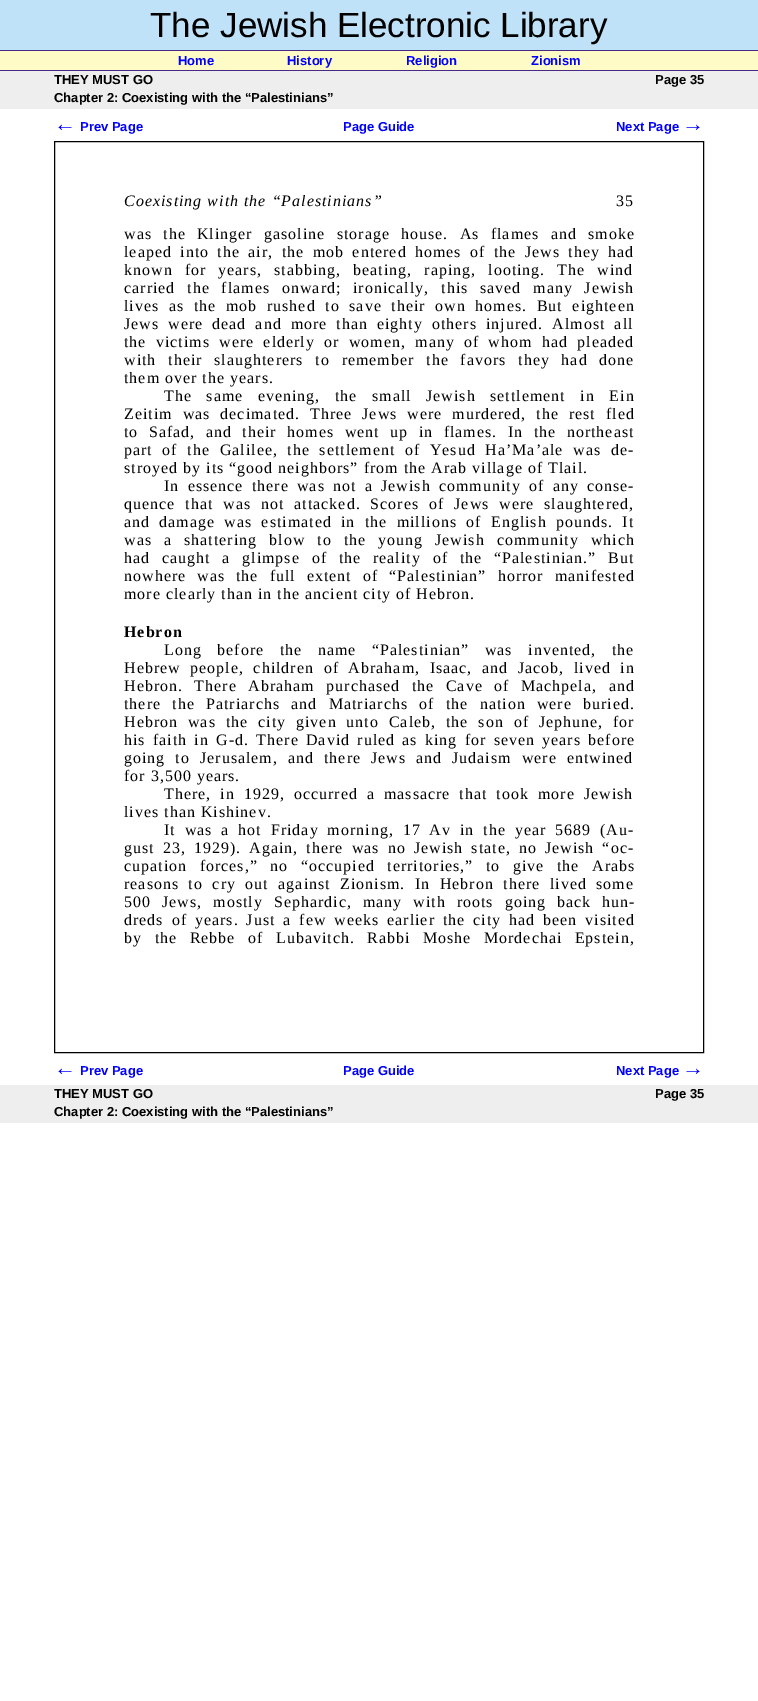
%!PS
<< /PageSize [758 1701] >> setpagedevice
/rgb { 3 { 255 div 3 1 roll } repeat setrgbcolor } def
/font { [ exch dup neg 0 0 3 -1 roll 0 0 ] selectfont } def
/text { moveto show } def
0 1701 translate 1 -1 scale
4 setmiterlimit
255 255 255 rgb
0 0 758 1701 rectfill
191 226 249 rgb
0 0 758 50 rectfill
74 40 133 rgb
0 50 758 1 rectfill
255 251 198 rgb
0 51 758 19 rectfill
74 40 133 rgb
0 70 758 1 rectfill
238 238 238 rgb
0 71 758 38 rectfill
0 0 0 rgb
54.5 141.5 649 911 rectstroke
238 238 238 rgb
0 1085 758 38 rectfill
/LiberationSans-Regular 35 font
0 0 0 rgb
(The Jewish Electronic Library) 150 37 text
/LiberationSans-Bold 13 font
0 0 255 rgb
(Home) 178 65 text
(History) 287 65 text
(Religion) 406 65 text
(Zionism) 531 65 text
0 0 0 rgb
(THEY MUST GO) 54 84 text
(Page 35) 655 84 text
(Chapter 2: Coexisting with the “Palestinians”) 54 102 text
/LiberationSans-Bold 22 font
0 0 255 rgb
(←) 54 131 text
/LiberationSans-Bold 13 font
(Prev Page) 80 131 text
(Page Guide) 343 131 text
(Next Page) 616 131 text
/LiberationSans-Bold 22 font
(→) 682 131 text
/LiberationSerif-Italic 16 font
0 0 0 rgb
124 206 moveto 1 0 (Coexisting with the “Palestinians”) ashow
/LiberationSerif-Regular 16 font
616 206 moveto 1 0 (35) ashow
124 239 moveto 6.25 0 32 1 0 (was the Klinger gasoline storage house. As flames and smoke) awidthshow
124 257 moveto 3.4 0 32 1 0 (leaped into the air, the mob entered homes of the Jews they had) awidthshow
124 275 moveto 7 0 32 1 0 (known for years, stabbing, beating, raping, looting. The wind) awidthshow
124 293 moveto 6.75 0 32 1 0 (carried the flames onward; ironically, this saved many Jewish) awidthshow
124 311 moveto 4.6 0 32 1 0 (lives as the mob rushed to save their own homes. But eighteen) awidthshow
124 329 moveto 4 0 32 1 0 (Jews were dead and more than eighty others injured. Almost all) awidthshow
124 347 moveto 4.25 0 32 1 0 (the victims were elderly or women, many of whom had pleaded) awidthshow
124 365 moveto 6.75 0 32 1 0 (with their slaughterers to remember the favors they had done) awidthshow
124 383 moveto 1 0 (them over the years.) ashow
164 401 moveto 9.5 0 32 1 0 (The same evening, the small Jewish settlement in Ein) awidthshow
124 419 moveto 4.9 0 32 1 0 (Zeitim was decimated. Three Jews were murdered, the rest fled) awidthshow
124 437 moveto 5.5 0 32 1 0 (to Safad, and their homes went up in flames. In the northeast) awidthshow
124 455 moveto 4.6 0 32 1 0 (part of the Galilee, the settlement of Yesud Ha’Ma’ale was de-) awidthshow
124 473 moveto 1 0 (stroyed by its “good neighbors” from the Arab village of Tlail.) ashow
164 491 moveto 3.25 0 32 1 0 (In essence there was not a Jewish community of any conse-) awidthshow
124 509 moveto 4.9 0 32 1 0 (quence that was not attacked. Scores of Jews were slaughtered,) awidthshow
124 527 moveto 4.25 0 32 1 0 (and damage was estimated in the millions of English pounds. It) awidthshow
124 545 moveto 7 0 32 1 0 (was a shattering blow to the young Jewish community which) awidthshow
124 563 moveto 6.75 0 32 1 0 (had caught a glimpse of the reality of the “Palestinian.” But) awidthshow
124 581 moveto 6 0 32 1 0 (nowhere was the full extent of “Palestinian” horror manifested) awidthshow
124 599 moveto 1 0 (more clearly than in the ancient city of Hebron.) ashow
/LiberationSerif-Bold 16 font
124 637 moveto 1 0 (Hebron) ashow
/LiberationSerif-Regular 16 font
164 655 moveto 10.5 0 32 1 0 (Long before the name “Palestinian” was invented, the) awidthshow
124 673 moveto 4.6 0 32 1 0 (Hebrew people, children of Abraham, Isaac, and Jacob, lived in) awidthshow
124 691 moveto 6.5 0 32 1 0 (Hebron. There Abraham purchased the Cave of Machpela, and) awidthshow
124 709 moveto 6.25 0 32 1 0 (there the Patriarchs and Matriarchs of the nation were buried.) awidthshow
124 727 moveto 4.9 0 32 1 0 (Hebron was the city given unto Caleb, the son of Jephune, for) awidthshow
124 745 moveto 2.25 0 32 1 0 (his faith in G-d. There David ruled as king for seven years before) awidthshow
124 763 moveto 5 0 32 1 0 (going to Jerusalem, and there Jews and Judaism were entwined) awidthshow
124 781 moveto 1 0 (for 3,500 years.) ashow
164 799 moveto 4 0 32 1 0 (There, in 1929, occurred a massacre that took more Jewish) awidthshow
124 817 moveto 1 0 (lives than Kishinev.) ashow
164 835 moveto 3.9 0 32 1 0 (It was a hot Friday morning, 17 Av in the year 5689 \(Au-) awidthshow
124 853 moveto 3.1 0 32 1 0 (gust 23, 1929\). Again, there was no Jewish state, no Jewish “oc-) awidthshow
124 871 moveto 7.5 0 32 1 0 (cupation forces,” no “occupied territories,” to give the Arabs) awidthshow
124 889 moveto 4.5 0 32 1 0 (reasons to cry out against Zionism. In Hebron there lived some) awidthshow
124 907 moveto 6 0 32 1 0 (500 Jews, mostly Sephardic, many with roots going back hun-) awidthshow
124 925 moveto 2.9 0 32 1 0 (dreds of years. Just a few weeks earlier the city had been visited) awidthshow
124 943 moveto 7.5 0 32 1 0 (by the Rebbe of Lubavitch. Rabbi Moshe Mordechai Epstein,) awidthshow
/LiberationSans-Bold 22 font
0 0 255 rgb
(←) 54 1075 text
/LiberationSans-Bold 13 font
(Prev Page) 80 1075 text
(Page Guide) 343 1075 text
(Next Page) 616 1075 text
/LiberationSans-Bold 22 font
(→) 682 1075 text
/LiberationSans-Bold 13 font
0 0 0 rgb
(THEY MUST GO) 54 1098 text
(Page 35) 655 1098 text
(Chapter 2: Coexisting with the “Palestinians”) 54 1116 text
showpage
